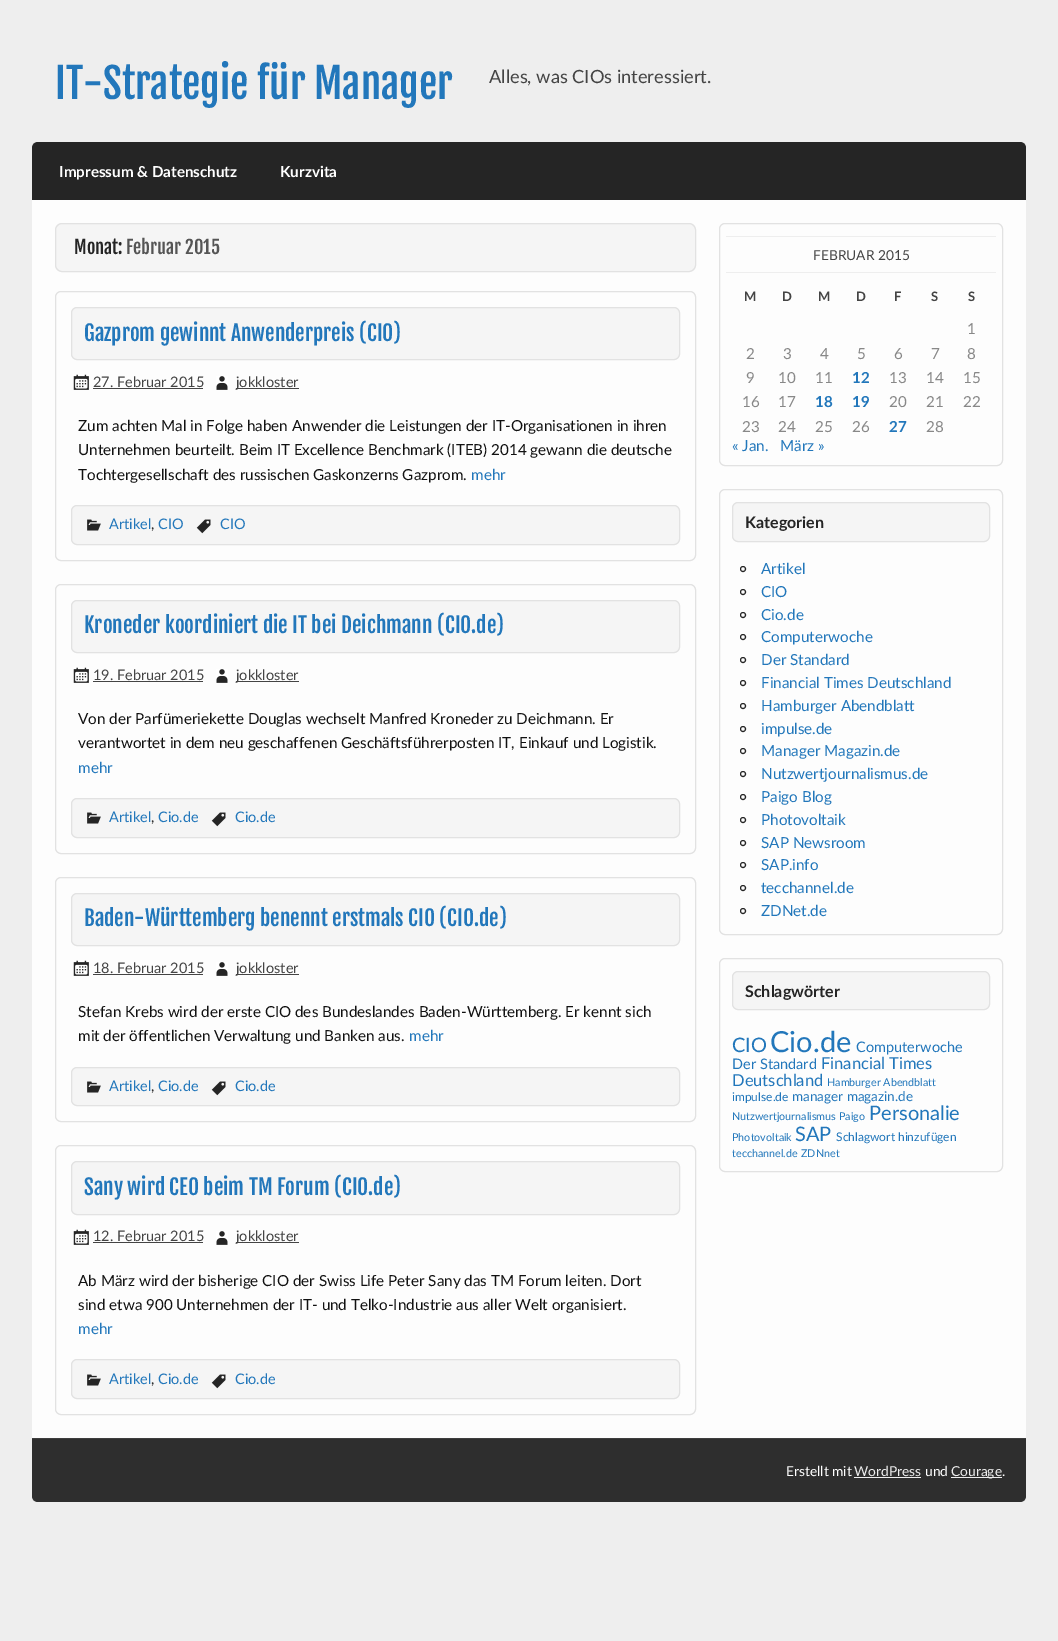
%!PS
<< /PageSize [1058 1641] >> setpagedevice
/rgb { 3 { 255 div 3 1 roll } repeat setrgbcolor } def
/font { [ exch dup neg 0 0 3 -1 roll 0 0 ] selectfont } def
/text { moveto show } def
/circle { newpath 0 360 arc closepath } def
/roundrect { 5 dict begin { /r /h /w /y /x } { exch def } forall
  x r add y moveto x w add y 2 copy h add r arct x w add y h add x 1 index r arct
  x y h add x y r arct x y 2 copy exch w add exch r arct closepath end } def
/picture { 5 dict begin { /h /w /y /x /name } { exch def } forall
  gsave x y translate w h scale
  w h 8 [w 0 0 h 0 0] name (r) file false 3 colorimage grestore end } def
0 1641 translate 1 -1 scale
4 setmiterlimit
238 238 238 rgb
0 0 1058 1641 rectfill
37 37 37 rgb
38 142 moveto 982 0 rlineto 3.5 0 6 2.5 6 6 rcurveto 0 52 rlineto -994 0 rlineto 0 -52 rlineto 0 -3.5 2.5 -6 6 -6 rcurveto closepath fill
253 253 253 rgb
32 200 994 1238 rectfill
245 245 245 rgb
55.5 223.5 640 48 6.5 roundrect gsave fill grestore
226 226 226 rgb
stroke
55.5 291.5 640 269 5.5 roundrect stroke
245 245 245 rgb
71.5 307.5 608 52 5.5 roundrect gsave fill grestore
226 226 226 rgb
stroke
(img_01.rgb) 73 374 16 16 picture
68 68 68 rgb
93 388 110 1 rectfill
(img_02.rgb) 216 376 12 14 picture
236 388 63 1 rectfill
245 245 245 rgb
71.5 505.5 608 39 5.5 roundrect gsave fill grestore
226 226 226 rgb
stroke
(img_03.rgb) 87 519 14 12 picture
(img_04.rgb) 196 519 15 15 picture
55.5 584.5 640 269 5.5 roundrect stroke
245 245 245 rgb
71.5 600.5 608 52 5.5 roundrect gsave fill grestore
226 226 226 rgb
stroke
(img_01.rgb) 73 667 16 16 picture
68 68 68 rgb
93 681 110 1 rectfill
(img_02.rgb) 216 669 12 14 picture
236 681 63 1 rectfill
245 245 245 rgb
71.5 798.5 608 39 5.5 roundrect gsave fill grestore
226 226 226 rgb
stroke
(img_03.rgb) 87 812 14 12 picture
(img_04.rgb) 211 812 15 15 picture
55.5 877.5 640 244 5.5 roundrect stroke
245 245 245 rgb
71.5 893.5 608 52 5.5 roundrect gsave fill grestore
226 226 226 rgb
stroke
(img_01.rgb) 73 960 16 16 picture
68 68 68 rgb
93 974 110 1 rectfill
(img_02.rgb) 216 962 12 14 picture
236 974 63 1 rectfill
245 245 245 rgb
71.5 1067.5 608 38 5.5 roundrect gsave fill grestore
226 226 226 rgb
stroke
(img_03.rgb) 87 1081 14 12 picture
(img_04.rgb) 211 1081 15 15 picture
55.5 1145.5 640 269 5.5 roundrect stroke
245 245 245 rgb
71.5 1161.5 608 53 5.5 roundrect gsave fill grestore
226 226 226 rgb
stroke
(img_01.rgb) 73 1229 16 16 picture
68 68 68 rgb
93 1242 110 1 rectfill
(img_02.rgb) 216 1231 12 14 picture
236 1242 63 1 rectfill
245 245 245 rgb
71.5 1359.5 608 39 5.5 roundrect gsave fill grestore
226 226 226 rgb
stroke
(img_03.rgb) 87 1374 14 12 picture
(img_04.rgb) 211 1374 15 15 picture
719.5 223.5 283 242 5.5 roundrect stroke
238 238 238 rgb
726 236 270 1 rectfill
726 272 270 1 rectfill
226 226 226 rgb
719.5 489.5 283 445 5.5 roundrect stroke
245 245 245 rgb
732.5 502.5 257 39 5.5 roundrect gsave fill grestore
226 226 226 rgb
stroke
37 37 37 rgb
743 569 2.5 circle stroke
743 592 2.5 circle stroke
743 615 2.5 circle stroke
743 637 2.5 circle stroke
743 660 2.5 circle stroke
743 683 2.5 circle stroke
743 706 2.5 circle stroke
743 729 2.5 circle stroke
743 751 2.5 circle stroke
743 774 2.5 circle stroke
743 797 2.5 circle stroke
743 820 2.5 circle stroke
743 843 2.5 circle stroke
743 865 2.5 circle stroke
743 888 2.5 circle stroke
743 911 2.5 circle stroke
226 226 226 rgb
719.5 958.5 283 213 5.5 roundrect stroke
245 245 245 rgb
732.5 971.5 257 38 5.5 roundrect gsave fill grestore
226 226 226 rgb
stroke
46 46 46 rgb
32 1438 moveto 994 0 rlineto 0 58 rlineto 0 3.5 -2.5 6 -6 6 rcurveto -982 0 rlineto -3.5 0 -6 -2.5 -6 -6 rcurveto closepath fill
62 62 62 rgb
32 1438 994 1 rectfill
238 238 238 rgb
854 1477 67 1 rectfill
951 1477 51 1 rectfill
/FjallaOne-Regular 41 font
34 119 187 rgb
(IT-Strategie für Manager) 55 99 text
/Lato-Regular 18.25 font
68 68 68 rgb
(Alles, was CIOs interessiert.) 489 83 text
/Lato-Bold 15.2 font
255 255 255 rgb
(Impressum & Datenschutz) 59 177 text
(Kurzvita) 280 177 text
/FjallaOne-Regular 18.25 font
37 37 37 rgb
(Monat:) 74 254 text
85 85 85 rgb
(Februar 2015) 126 254 text
/FjallaOne-Regular 21.25 font
34 119 187 rgb
(Gazprom gewinnt Anwenderpreis \(CIO\)) 84 341 text
/Lato-Regular 14.5 font
68 68 68 rgb
(27. Februar 2015) 93 387 text
(jokkloster) 236 387 text
/Lato-Regular 15.2 font
17 17 17 rgb
(Zum achten Mal in Folge haben Anwender die Leistungen der IT-Organisationen in ihren) 78 431 text
(Unternehmen beurteilt. Beim IT Excellence Benchmark \(ITEB\) 2014 gewann die deutsche) 78 455 text
(Tochtergesellschaft des russischen Gaskonzerns Gazprom.) 78 480 text
34 119 187 rgb
(mehr) 471 480 text
/Lato-Regular 14.5 font
(Artikel) 109 529 text
37 37 37 rgb
(,) 151 529 text
34 119 187 rgb
(CIO) 158 529 text
(CIO) 220 529 text
/FjallaOne-Regular 21.25 font
(Kroneder koordiniert die IT bei Deichmann \(CIO.de\)) 84 633 text
/Lato-Regular 14.5 font
68 68 68 rgb
(19. Februar 2015) 93 680 text
(jokkloster) 236 680 text
/Lato-Regular 15.2 font
17 17 17 rgb
(Von der Parfümeriekette Douglas wechselt Manfred Kroneder zu Deichmann. Er) 78 724 text
(verantwortet in dem neu geschaffenen Geschäftsführerposten IT, Einkauf und Logistik.) 78 748 text
34 119 187 rgb
(mehr) 78 773 text
/Lato-Regular 14.5 font
(Artikel) 109 822 text
37 37 37 rgb
(,) 151 822 text
34 119 187 rgb
(Cio.de) 158 822 text
(Cio.de) 235 822 text
/FjallaOne-Regular 21.25 font
(Baden-Württemberg benennt erstmals CIO \(CIO.de\)) 84 926 text
/Lato-Regular 14.5 font
68 68 68 rgb
(18. Februar 2015) 93 973 text
(jokkloster) 236 973 text
/Lato-Regular 15.2 font
17 17 17 rgb
(Stefan Krebs wird der erste CIO des Bundeslandes Baden-Württemberg. Er kennt sich) 78 1017 text
(mit der öffentlichen Verwaltung und Banken aus.) 78 1041 text
34 119 187 rgb
(mehr) 409 1041 text
/Lato-Regular 14.5 font
(Artikel) 109 1091 text
37 37 37 rgb
(,) 151 1091 text
34 119 187 rgb
(Cio.de) 158 1091 text
(Cio.de) 235 1091 text
/FjallaOne-Regular 21.25 font
(Sany wird CEO beim TM Forum \(CIO.de\)) 84 1195 text
/Lato-Regular 14.5 font
68 68 68 rgb
(12. Februar 2015) 93 1241 text
(jokkloster) 236 1241 text
/Lato-Regular 15.2 font
17 17 17 rgb
(Ab März wird der bisherige CIO der Swiss Life Peter Sany das TM Forum leiten. Dort) 78 1286 text
(sind etwa 900 Unternehmen der IT- und Telko-Industrie aus aller Welt organisiert.) 78 1310 text
34 119 187 rgb
(mehr) 78 1334 text
/Lato-Regular 14.5 font
(Artikel) 109 1384 text
37 37 37 rgb
(,) 151 1384 text
34 119 187 rgb
(Cio.de) 158 1384 text
(Cio.de) 235 1384 text
/Lato-Regular 13.75 font
68 68 68 rgb
(FEBRUAR 2015) 813 260 text
/Lato-Bold 13 font
(M) 744 301 text
(D) 782 301 text
(M) 818 301 text
(D) 856 301 text
(F) 894 301 text
(S) 931 301 text
(S) 968 301 text
/Lato-Regular 15.2 font
136 136 136 rgb
(1) 967 334 text
(2) 746 359 text
(3) 783 359 text
(4) 820 359 text
(5) 857 359 text
(6) 894 359 text
(7) 931 359 text
(8) 967 359 text
(9) 746 383 text
(10) 778 383 text
(11) 815 383 text
/Lato-Bold 15.2 font
34 119 187 rgb
(12) 852 383 text
/Lato-Regular 15.2 font
136 136 136 rgb
(13) 889 383 text
(14) 926 383 text
(15) 963 383 text
(16) 742 407 text
(17) 778 407 text
/Lato-Bold 15.2 font
34 119 187 rgb
(18) 815 407 text
(19) 852 407 text
/Lato-Regular 15.2 font
136 136 136 rgb
(20) 889 407 text
(21) 926 407 text
(22) 963 407 text
(23) 742 432 text
(24) 778 432 text
(25) 815 432 text
(26) 852 432 text
/Lato-Bold 15.2 font
34 119 187 rgb
(27) 889 432 text
/Lato-Regular 15.2 font
136 136 136 rgb
(28) 926 432 text
34 119 187 rgb
(« Jan.) 732 451 text
(März ») 780 451 text
/Lato-Bold 16 font
37 37 37 rgb
(Kategorien) 745 528 text
/Lato-Regular 15.2 font
34 119 187 rgb
(Artikel) 761 574 text
(CIO) 761 597 text
(Cio.de) 761 620 text
(Computerwoche) 761 642 text
(Der Standard) 761 665 text
(Financial Times Deutschland) 761 688 text
(Hamburger Abendblatt) 761 711 text
(impulse.de) 761 734 text
(Manager Magazin.de) 761 756 text
(Nutzwertjournalismus.de) 761 779 text
(Paigo Blog) 761 802 text
(Photovoltaik) 761 825 text
(SAP Newsroom) 761 848 text
(SAP.info) 761 870 text
(tecchannel.de) 761 893 text
(ZDNet.de) 761 916 text
/Lato-Bold 16 font
37 37 37 rgb
(Schlagwörter) 745 997 text
/Lato-Regular 20 font
34 119 187 rgb
(CIO) 732 1052 text
/Lato-Regular 29 font
(Cio.de) 770 1052 text
/Lato-Regular 14.5 font
(Computerwoche) 856 1052 text
(Der Standard) 732 1069 text
/Lato-Regular 16.5 font
(Financial Times) 821 1069 text
(Deutschland) 732 1086 text
/Lato-Regular 10.75 font
(Hamburger Abendblatt) 827 1086 text
/Lato-Regular 12 font
(impulse.de) 732 1101 text
/Lato-Regular 13.5 font
(manager magazin.de) 792 1101 text
/Lato-Regular 10.75 font
(Nutzwertjournalismus) 732 1120 text
(Paigo) 839 1120 text
/Lato-Regular 20 font
(Personalie) 869 1120 text
/Lato-Regular 10.75 font
(Photovoltaik) 732 1141 text
/Lato-Regular 20 font
(SAP) 795 1141 text
/Lato-Regular 12 font
(Schlagwort hinzufügen) 836 1141 text
/Lato-Regular 10.75 font
(tecchannel.de) 732 1157 text
(ZDNnet) 801 1157 text
/Lato-Regular 13.75 font
255 255 255 rgb
(Erstellt mit) 786 1476 text
238 238 238 rgb
(WordPress) 854 1476 text
255 255 255 rgb
(und) 925 1476 text
238 238 238 rgb
(Courage) 951 1476 text
255 255 255 rgb
(.) 1002 1476 text
showpage
